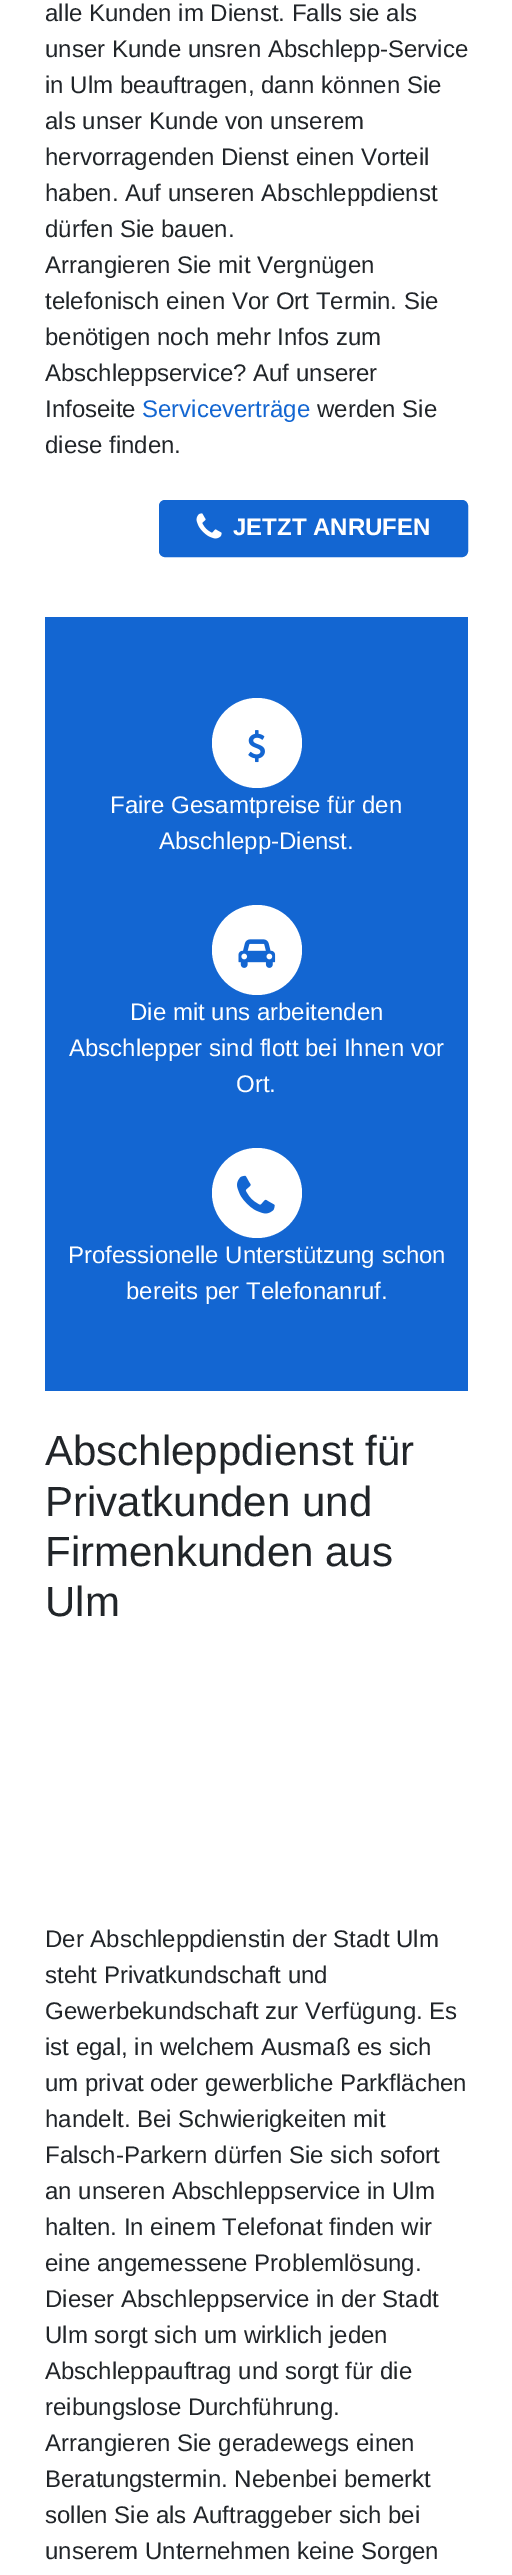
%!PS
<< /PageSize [512 2575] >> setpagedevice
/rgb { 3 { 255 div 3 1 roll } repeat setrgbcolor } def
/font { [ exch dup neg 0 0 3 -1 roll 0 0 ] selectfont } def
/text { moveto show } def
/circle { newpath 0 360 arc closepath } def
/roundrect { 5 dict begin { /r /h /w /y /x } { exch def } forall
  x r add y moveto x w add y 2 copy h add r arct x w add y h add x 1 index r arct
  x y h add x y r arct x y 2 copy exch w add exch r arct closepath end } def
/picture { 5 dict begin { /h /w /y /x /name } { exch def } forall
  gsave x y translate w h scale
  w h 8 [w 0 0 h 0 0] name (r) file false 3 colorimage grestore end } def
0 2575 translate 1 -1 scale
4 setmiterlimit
255 255 255 rgb
0 0 512 2575 rectfill
19 102 210 rgb
160 501 307 55 5 roundrect gsave fill grestore
2 setlinewidth
stroke
(img_01.rgb) 196 513 26 26 picture
45 617 423 774 rectfill
255 255 255 rgb
257 743 45 circle fill
(img_02.rgb) 248 730 17 33 picture
257 950 45 circle fill
(img_03.rgb) 238 939 38 29 picture
257 1193 45 circle fill
(img_04.rgb) 237 1175 38 39 picture
/LiberationSans-Regular 24 font
33 37 41 rgb
(alle Kunden im Dienst. Falls sie als) 45 21 text
(unser Kunde unsren Abschlepp-Service) 45 57 text
(in Ulm beauftragen, dann können Sie) 45 93 text
(als unser Kunde von unserem) 45 129 text
(hervorragenden Dienst einen Vorteil) 45 165 text
(haben. Auf unseren Abschleppdienst) 45 201 text
(dürfen Sie bauen.) 45 237 text
(Arrangieren Sie mit Vergnügen) 45 273 text
(telefonisch einen Vor Ort Termin. Sie) 45 309 text
(benötigen noch mehr Infos zum) 45 345 text
(Abschleppservice? Auf unserer) 45 381 text
(Infoseite) 45 417 text
19 102 210 rgb
(Serviceverträge) 142 417 text
33 37 41 rgb
(werden Sie) 317 417 text
(diese finden.) 45 453 text
/LiberationSans-Bold 24 font
255 255 255 rgb
(JETZT ANRUFEN) 233 535 text
/LiberationSans-Regular 24 font
(Faire Gesamtpreise für den) 110 813 text
(Abschlepp-Dienst.) 159 849 text
(Die mit uns arbeitenden) 130 1020 text
(Abschlepper sind flott bei Ihnen vor) 69 1056 text
(Ort.) 236 1092 text
(Professionelle Unterstützung schon) 68 1263 text
(bereits per Telefonanruf.) 126 1299 text
/LiberationSans-Regular 42 font
33 37 41 rgb
(Abschleppdienst für) 45 1465 text
(Privatkunden und) 45 1516 text
(Firmenkunden aus) 45 1566 text
(Ulm) 45 1616 text
/LiberationSans-Regular 24 font
(Der Abschleppdienstin der Stadt Ulm) 45 1947 text
(steht Privatkundschaft und) 45 1983 text
(Gewerbekundschaft zur Verfügung. Es) 45 2019 text
(ist egal, in welchem Ausmaß es sich) 45 2055 text
(um privat oder gewerbliche Parkflächen) 45 2091 text
(handelt. Bei Schwierigkeiten mit) 45 2127 text
(Falsch-Parkern dürfen Sie sich sofort) 45 2163 text
(an unseren Abschleppservice in Ulm) 45 2199 text
(halten. In einem Telefonat finden wir) 45 2235 text
(eine angemessene Problemlösung.) 45 2271 text
(Dieser Abschleppservice in der Stadt) 45 2307 text
(Ulm sorgt sich um wirklich jeden) 45 2343 text
(Abschleppauftrag und sorgt für die) 45 2379 text
(reibungslose Durchführung.) 45 2415 text
(Arrangieren Sie geradewegs einen) 45 2451 text
(Beratungstermin. Nebenbei bemerkt) 45 2487 text
(sollen Sie als Auftraggeber sich bei) 45 2523 text
(unserem Unternehmen keine Sorgen) 45 2559 text
showpage
